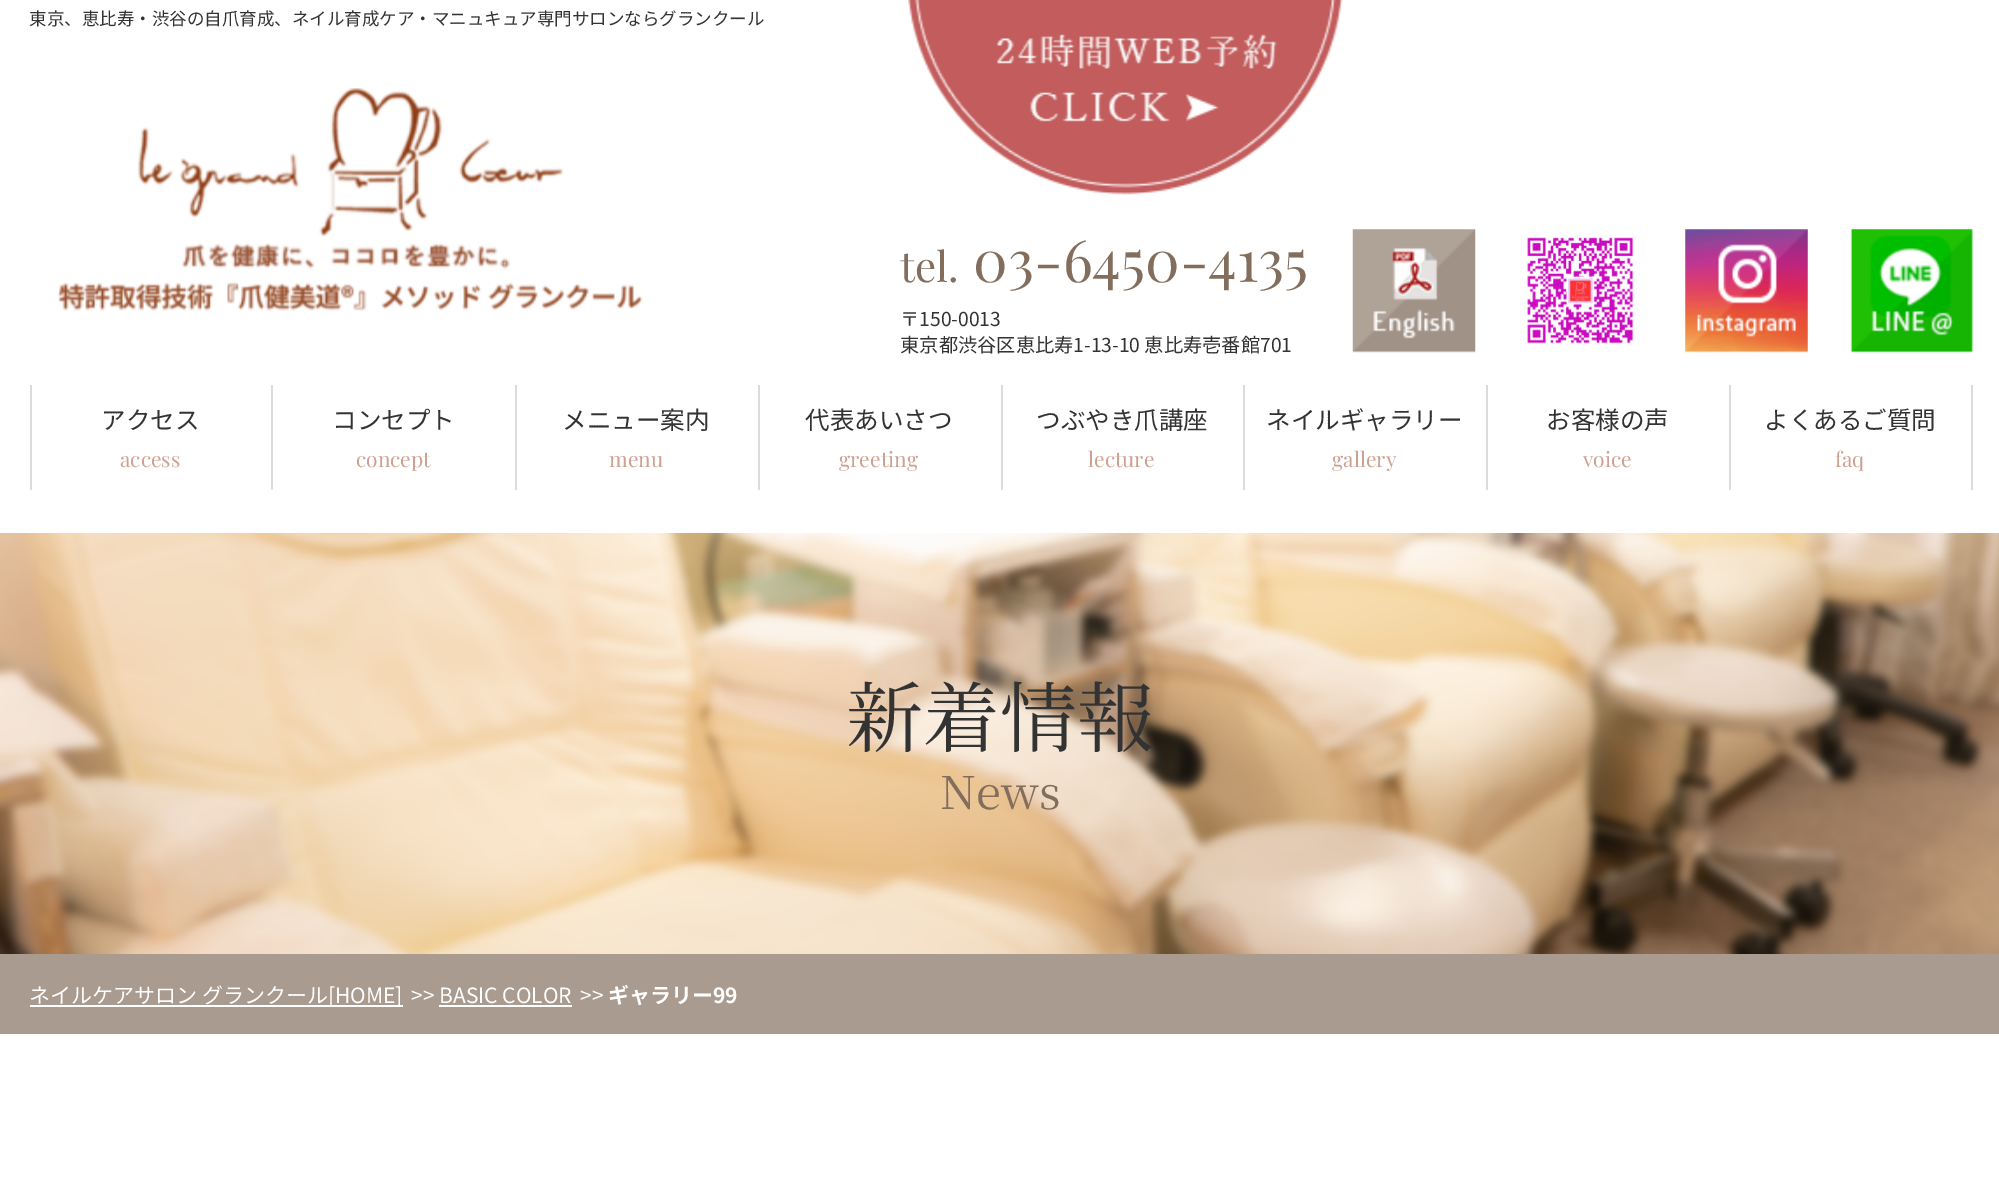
%!PS
<< /PageSize [1999 1183] >> setpagedevice
/rgb { 3 { 255 div 3 1 roll } repeat setrgbcolor } def
/font { [ exch dup neg 0 0 3 -1 roll 0 0 ] selectfont } def
/text { moveto show } def
/picture { 5 dict begin { /h /w /y /x /name } { exch def } forall
  gsave x y translate w h scale
  w h 8 [w 0 0 h 0 0] name (r) file false 3 colorimage grestore end } def
0 1183 translate 1 -1 scale
4 setmiterlimit
255 255 255 rgb
0 0 1999 1183 rectfill
(img_01.rgb) 57 88 586 223 picture
(img_02.rgb) 908 0 435 195 picture
(img_03.rgb) 1352 229 124 124 picture
(img_04.rgb) 1527 237 107 107 picture
(img_05.rgb) 1685 229 123 124 picture
(img_06.rgb) 1850 229 123 124 picture
220 220 219 rgb
30 385 2 105 rectfill
271 385 2 105 rectfill
515 385 2 105 rectfill
758 385 2 105 rectfill
1001 385 2 105 rectfill
1243 385 2 105 rectfill
1486 385 2 105 rectfill
1729 385 2 105 rectfill
1971 385 2 105 rectfill
(img_07.rgb) 0 533 1999 421 picture
169 155 144 rgb
0 954 1999 80 rectfill
255 255 255 rgb
30 1005 373 2 rectfill
439 1005 133 2 rectfill
/NotoSansJP-Regular 17.5 font
51 51 51 rgb
(東京、恵比寿・渋谷の自爪育成、ネイル育成ケア・マニュキュア専門サロンならグランクール) 29 25 text
/PlayfairDisplay-Regular 42 font
131 110 93 rgb
(tel.) 900 282 text
/PlayfairDisplay-Regular 57.75 font
(03-6450-4135) 973 282 text
/NotoSansJP-Regular 19.25 font
51 51 51 rgb
(〒150-0013) 900 326 text
(東京都渋谷区恵比寿1-13-10 恵比寿壱番館701) 900 352 text
/NotoSansJP-Regular 24.5 font
(アクセス) 101 429 text
/PlayfairDisplay-Regular 21 font
205 160 145 rgb
(access) 120 467 text
/NotoSansJP-Regular 24.5 font
51 51 51 rgb
(コンセプト) 332 429 text
/PlayfairDisplay-Regular 21 font
205 160 145 rgb
(concept) 356 467 text
/NotoSansJP-Regular 24.5 font
51 51 51 rgb
(メニュー案内) 562 429 text
/PlayfairDisplay-Regular 21 font
205 160 145 rgb
(menu) 609 467 text
/NotoSansJP-Regular 24.5 font
51 51 51 rgb
(代表あいさつ) 805 429 text
/PlayfairDisplay-Regular 21 font
205 160 145 rgb
(greeting) 839 467 text
/NotoSansJP-Regular 24.5 font
51 51 51 rgb
(つぶやき爪講座) 1036 429 text
/PlayfairDisplay-Regular 21 font
205 160 145 rgb
(lecture) 1088 467 text
/NotoSansJP-Regular 24.5 font
51 51 51 rgb
(ネイルギャラリー) 1266 429 text
/PlayfairDisplay-Regular 21 font
205 160 145 rgb
(gallery) 1332 467 text
/NotoSansJP-Regular 24.5 font
51 51 51 rgb
(お客様の声) 1546 429 text
/PlayfairDisplay-Regular 21 font
205 160 145 rgb
(voice) 1583 467 text
/NotoSansJP-Regular 24.5 font
51 51 51 rgb
(よくあるご質問) 1764 429 text
/PlayfairDisplay-Regular 21 font
205 160 145 rgb
(faq) 1835 467 text
/NotoSerifJP-Regular 77 font
51 51 51 rgb
(新着情報) 846 746 text
/NotoSerifJP-Regular 45.5 font
131 110 93 rgb
(News) 940 809 text
/NotoSansJP-Regular 21 font
255 255 255 rgb
(ネイルケアサロン グランクール[HOME]) 29 1003 text
(>> BASIC COLOR) 411 1003 text
(>>) 580 1003 text
/NotoSansJP-Bold 21 font
(ギャラリー99) 608 1003 text
showpage
